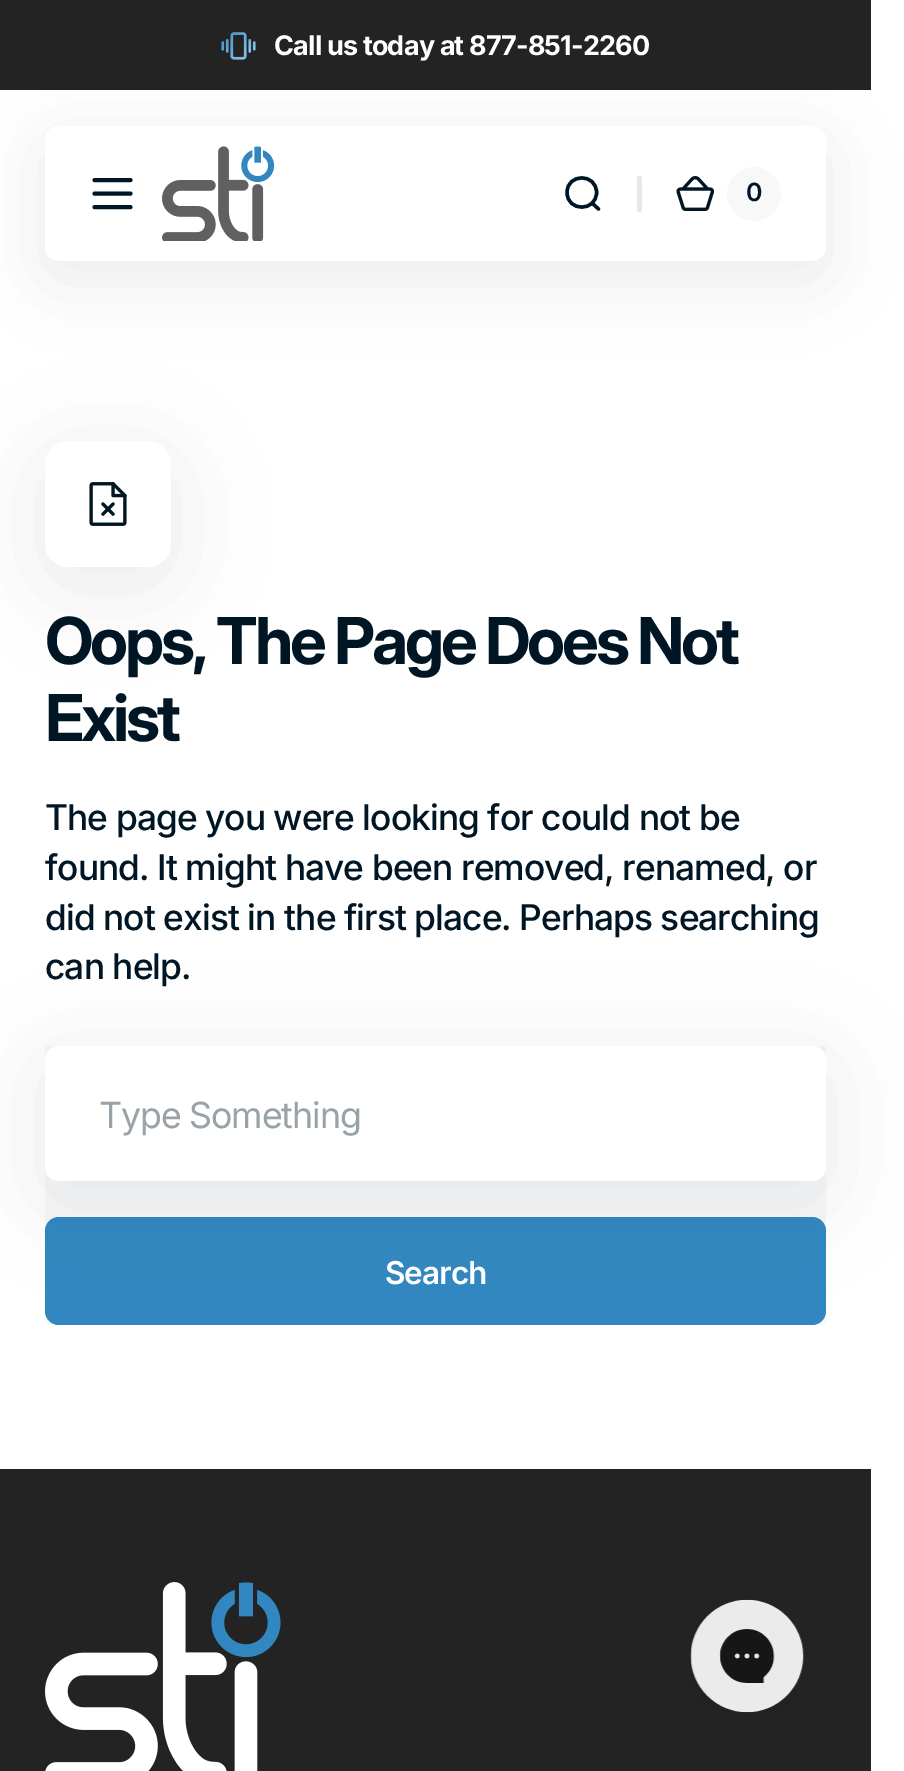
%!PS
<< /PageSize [904 1771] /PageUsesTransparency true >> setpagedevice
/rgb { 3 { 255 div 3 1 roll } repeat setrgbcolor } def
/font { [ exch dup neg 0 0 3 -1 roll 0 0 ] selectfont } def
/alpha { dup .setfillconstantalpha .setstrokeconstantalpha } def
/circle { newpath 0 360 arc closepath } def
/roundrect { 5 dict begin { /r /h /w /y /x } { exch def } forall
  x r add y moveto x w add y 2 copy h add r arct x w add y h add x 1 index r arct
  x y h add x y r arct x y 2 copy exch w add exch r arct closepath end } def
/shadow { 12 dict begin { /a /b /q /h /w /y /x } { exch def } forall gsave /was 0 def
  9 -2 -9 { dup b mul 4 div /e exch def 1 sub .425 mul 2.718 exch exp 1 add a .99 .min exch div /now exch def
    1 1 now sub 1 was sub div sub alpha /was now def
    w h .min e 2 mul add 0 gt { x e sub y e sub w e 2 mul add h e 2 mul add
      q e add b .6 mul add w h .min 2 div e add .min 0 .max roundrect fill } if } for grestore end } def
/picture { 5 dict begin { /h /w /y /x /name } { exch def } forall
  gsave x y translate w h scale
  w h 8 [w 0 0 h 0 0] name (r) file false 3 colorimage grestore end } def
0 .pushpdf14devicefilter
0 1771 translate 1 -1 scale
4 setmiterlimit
255 255 255 rgb
0 0 904 1771 rectfill
35 35 35 rgb
0 0 871 90 rectfill
(img_01.rgb) 221 32 35 28 picture
1 22 36 rgb
45 144 781 135 14 34 0.08 shadow
255 255 255 rgb
45 126 781 135 14 roundrect fill
1 22 36 rgb
4 setlinewidth
1 setlinecap
94.5 180 moveto 36 0 rlineto 94.5 193.5 moveto 36 0 rlineto 94.5 207 moveto 36 0 rlineto stroke
(img_02.rgb) 162 146 113 95 picture
3.4 setlinewidth
592 203 moveto 6.5 6 rlineto 596.5 192.5 moveto 0 19.5 -29.5 19.5 -29.5 0 rcurveto 0 -19.5 29.5 -19.5 29.5 0 rcurveto closepath stroke
230 232 233 rgb
637 176 5 36 2.5 roundrect fill
(img_03.rgb) 676 176 39 35 picture
247 248 248 rgb
754 194 27 circle fill
1 22 36 rgb
45 459 126 126 23 45 0.08 shadow
255 255 255 rgb
45 441 126 126 23 roundrect fill
(img_04.rgb) 89 482 38 44 picture
248 248 248 rgb
45 1046 781 279 rectfill
50 135 193 rgb
45 1217 781 108 14 roundrect fill
1 22 36 rgb
45 1064 781 135 14 45 0.08 shadow
255 255 255 rgb
45 1046 781 135 14 roundrect fill
35 35 35 rgb
0 1469 871 302 rectfill
(img_05.rgb) 45 1582 236 189 picture
(img_06.rgb) 690 1599 114 114 picture
/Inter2-Bold 27 font
255 255 255 rgb
274 55 moveto -0.8 0 (Call us today at 877-851-2260) ashow
/Inter-SemiBold 25 font
1 22 36 rgb
746 201 moveto -0.93 0 (0) ashow
/Inter-Bold 64.75 font
45 664 moveto -3.25 0 (Oops, The Page Does Not) ashow
45 741 moveto -3.25 0 (Exist) ashow
/Inter-Medium 35.55 font
45 830 moveto -0.93 0 (The page you were looking for could not be) ashow
45 880 moveto -0.93 0 (found. It might have been removed, renamed, or) ashow
45 930 moveto -0.93 0 (did not exist in the first place. Perhaps searching) ashow
45 979 moveto -0.93 0 (can help.) ashow
/Inter-Regular 36 font
153 162 167 rgb
99 1128 moveto -1.1 0 (Type Something) ashow
/Inter-SemiBold 31.5 font
255 255 255 rgb
385 1284 moveto -1 0 (Search) ashow
.poppdf14devicefilter showpage
